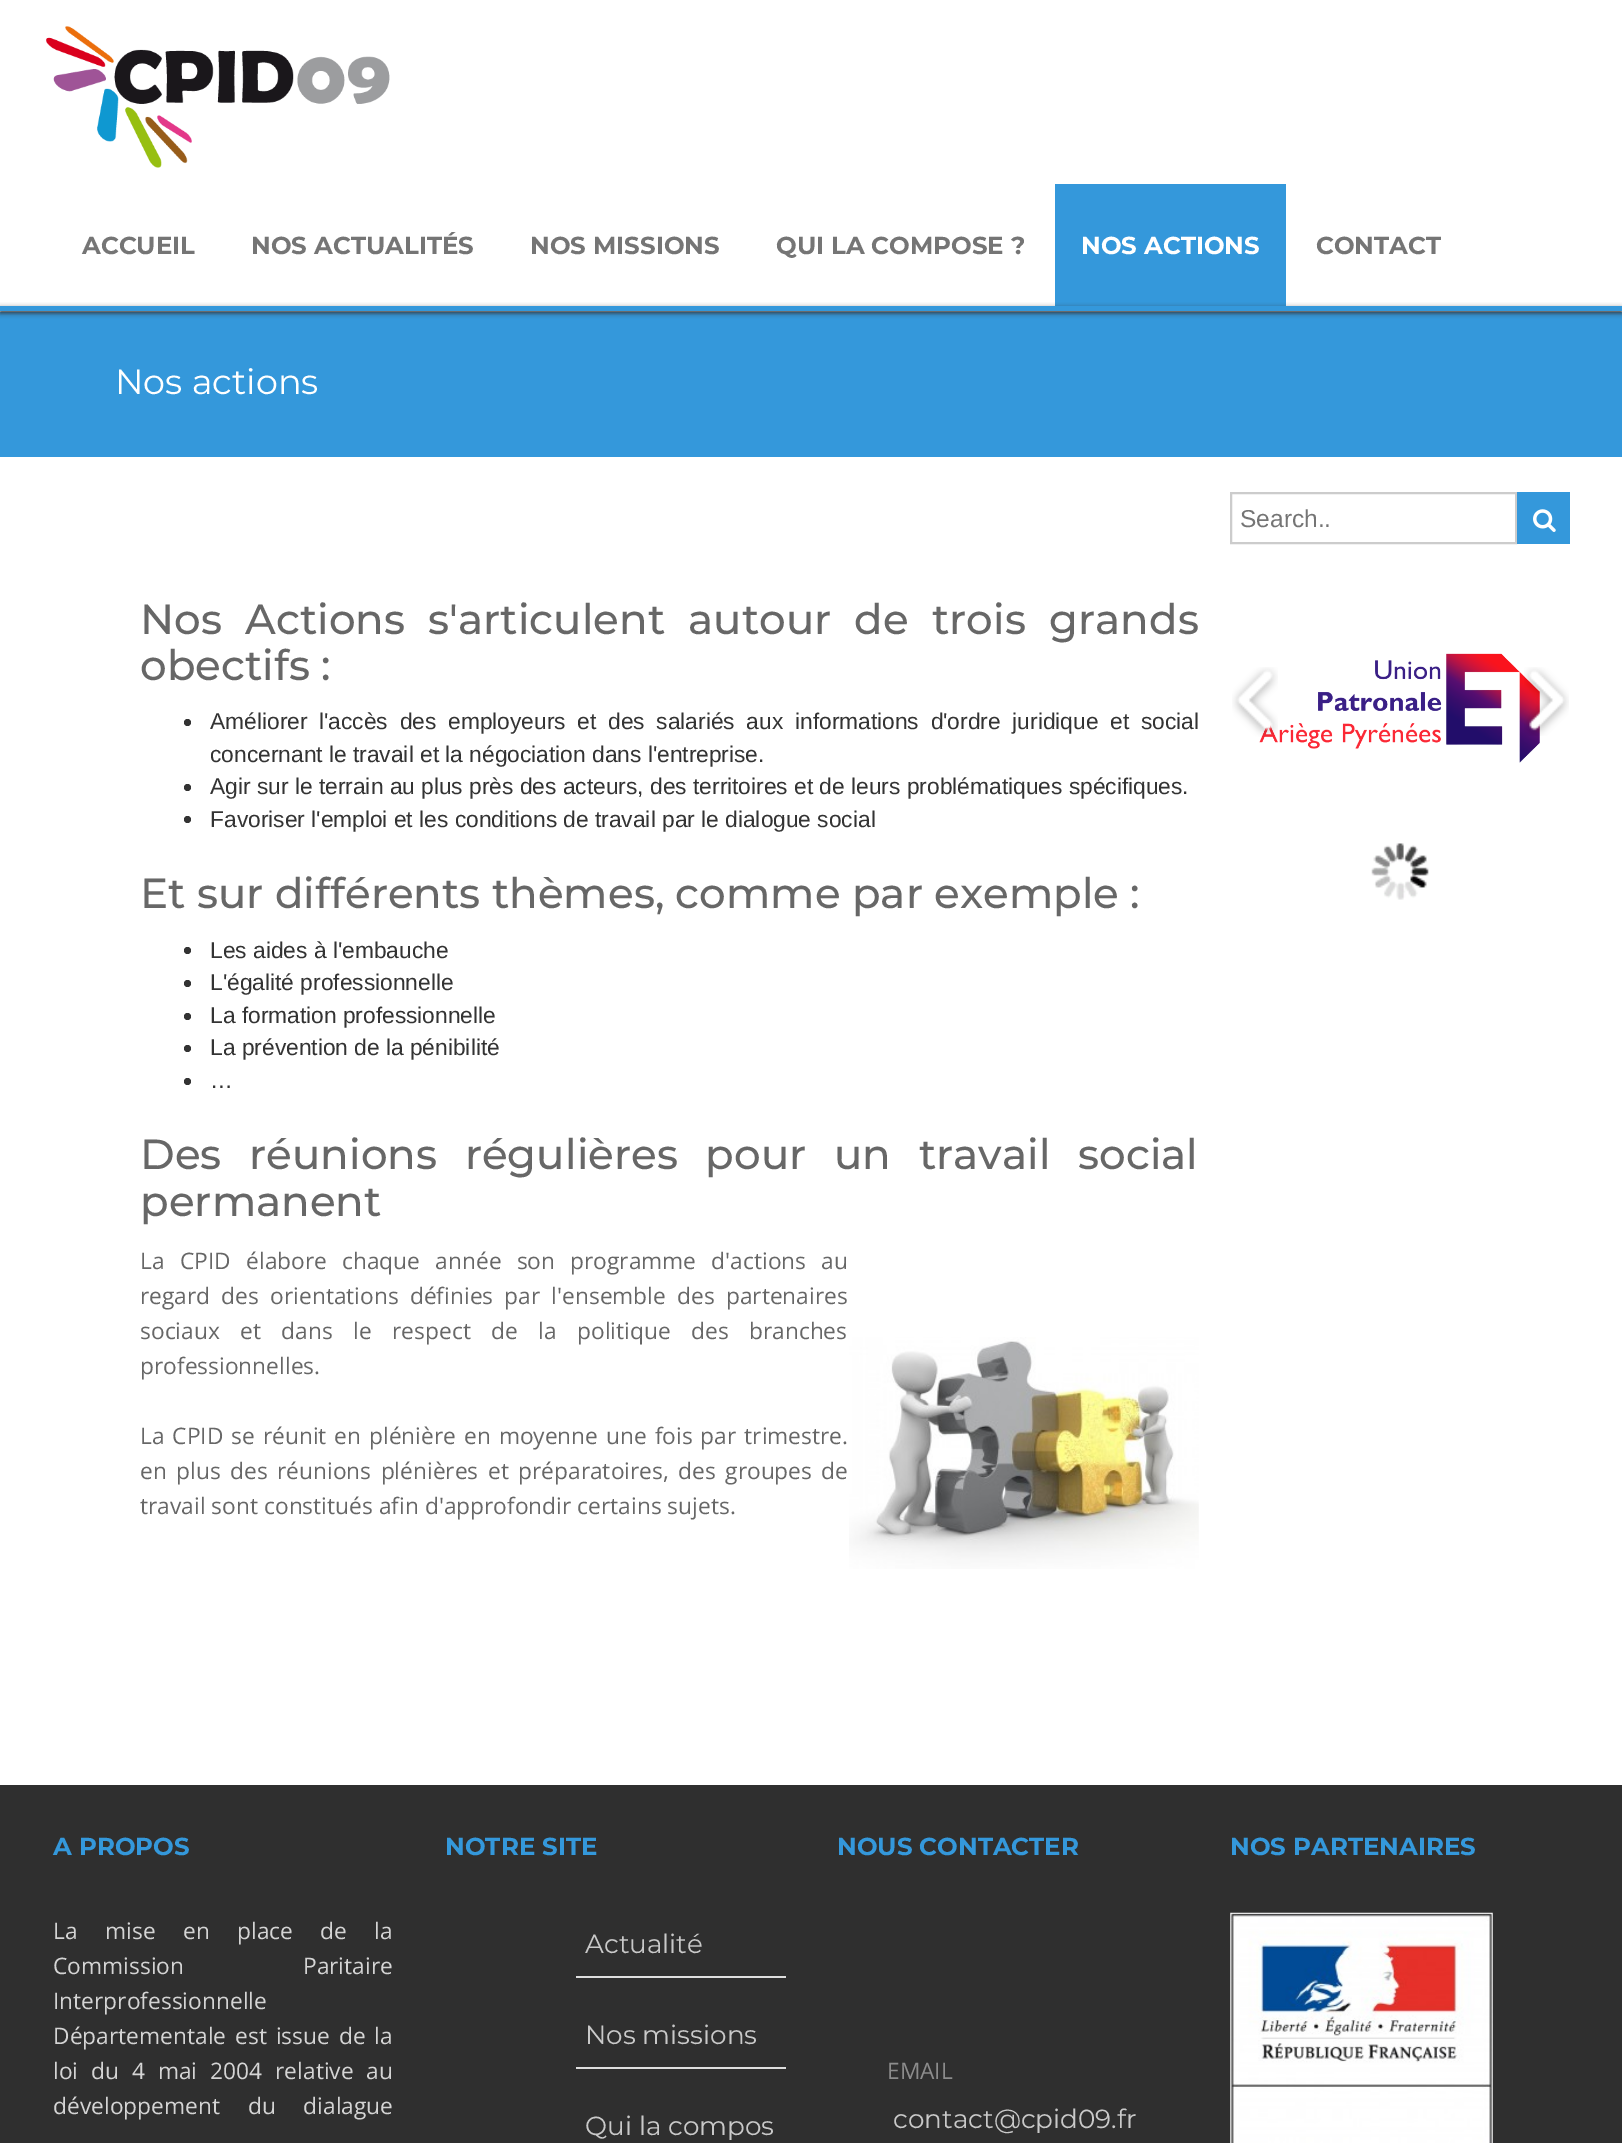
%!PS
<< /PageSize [1622 2143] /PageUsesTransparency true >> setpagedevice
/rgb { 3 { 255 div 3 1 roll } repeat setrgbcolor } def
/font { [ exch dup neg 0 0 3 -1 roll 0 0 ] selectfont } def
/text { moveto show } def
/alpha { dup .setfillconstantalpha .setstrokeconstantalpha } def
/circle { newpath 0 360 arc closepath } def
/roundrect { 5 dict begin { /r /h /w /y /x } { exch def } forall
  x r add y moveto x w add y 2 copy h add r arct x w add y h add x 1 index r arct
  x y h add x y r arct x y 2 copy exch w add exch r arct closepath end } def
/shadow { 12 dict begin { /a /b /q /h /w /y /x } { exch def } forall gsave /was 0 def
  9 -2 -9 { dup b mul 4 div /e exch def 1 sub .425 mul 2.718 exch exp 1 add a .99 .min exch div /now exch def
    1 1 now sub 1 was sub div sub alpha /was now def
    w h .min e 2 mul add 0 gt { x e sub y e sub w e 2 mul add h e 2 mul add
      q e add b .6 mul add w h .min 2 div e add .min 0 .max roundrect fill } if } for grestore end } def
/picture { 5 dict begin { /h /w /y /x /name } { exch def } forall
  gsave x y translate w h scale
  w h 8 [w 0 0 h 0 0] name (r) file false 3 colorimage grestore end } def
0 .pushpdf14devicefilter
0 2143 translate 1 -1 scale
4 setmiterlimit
255 255 255 rgb
0 0 1622 2143 rectfill
52 152 219 rgb
0 306 1622 5 rectfill
(img_01.rgb) 46 26 344 142 picture
1055 184 231 122 rectfill
0 312 1622 145 rectfill
gsave
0 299 moveto 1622 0 rlineto 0 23 rlineto -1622 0 rlineto closepath 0 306 moveto 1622 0 rlineto 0 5 rlineto -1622 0 rlineto closepath eoclip newpath
51 51 51 rgb
0 308 1622 5 0 2.5 1 shadow
grestore
204 204 204 rgb
2 setlinewidth
1231 493 285 50 rectstroke
52 152 219 rgb
1517 492 53 52 rectfill
(img_02.rgb) 1533 509 23 23 picture
(img_03.rgb) 1259 653 281 110 picture
(img_04.rgb) 1232 667 46 70 picture
(img_05.rgb) 1524 667 45 69 picture
(img_06.rgb) 1371 843 58 57 picture
51 51 51 rgb
187.5 722.5 3.5 circle fill
187.5 787.5 3.5 circle fill
187.5 819.5 3.5 circle fill
187.5 950.5 3.5 circle fill
187.5 983.5 3.5 circle fill
187.5 1016.5 3.5 circle fill
187.5 1048.5 3.5 circle fill
187.5 1081.5 3.5 circle fill
(img_07.rgb) 849 1337 350 232 picture
47 47 47 rgb
0 1785 1622 358 rectfill
222 222 222 rgb
576 1976 210 2 rectfill
576 2067 210 2 rectfill
(img_08.rgb) 1230 1912 263 231 picture
/Montserrat-Bold 24.5 font
117 117 117 rgb
(ACCUEIL) 82 254 text
(NOS ACTUALITÉS) 251 254 text
(NOS MISSIONS) 530 254 text
(QUI LA COMPOSE ?) 776 254 text
255 255 255 rgb
(NOS ACTIONS) 1081 254 text
117 117 117 rgb
(CONTACT) 1316 254 text
/Montserrat-Regular 35 font
255 255 255 rgb
(Nos actions) 115 394 text
/LiberationSans-Regular 24.5 font
117 117 117 rgb
(Search..) 1240 527 text
/Montserrat-Medium 42 font
103 103 103 rgb
140 634 moveto 11.75 0 32 (Nos Actions s'articulent autour de trois grands) widthshow
(obectifs :) 140 680 text
/LiberationSans-Regular 22.75 font
51 51 51 rgb
210 729 moveto 5.4 0 32 (Améliorer l'accès des employeurs et des salariés aux informations d'ordre juridique et social) widthshow
(concernant le travail et la négociation dans l'entreprise.) 210 762 text
(Agir sur le terrain au plus près des acteurs, des territoires et de leurs problématiques spécifiques.) 210 794 text
(Favoriser l'emploi et les conditions de travail par le dialogue social) 210 827 text
/Montserrat-Medium 42 font
103 103 103 rgb
(Et sur différents thèmes, comme par exemple :) 140 908 text
/LiberationSans-Regular 22.75 font
51 51 51 rgb
(Les aides à l'embauche) 210 958 text
(L'égalité professionnelle) 210 990 text
(La formation professionnelle) 210 1023 text
(La prévention de la pénibilité) 210 1055 text
(…) 210 1088 text
/Montserrat-Medium 42 font
103 103 103 rgb
140 1169 moveto 16.25 0 32 (Des réunions régulières pour un travail social) widthshow
(permanent) 140 1216 text
/OpenSans-Regular 22.75 font
140 1269 moveto 9.25 0 32 (La CPID) widthshow
246 1269 moveto 9.25 0 32 (élabore chaque année son programme d'actions au) widthshow
140 1304 moveto 5.25 0 32 (regard des orientations définies par l'ensemble des partenaires) widthshow
140 1339 moveto 14.5 0 32 (sociaux et dans le respect de la politique des branches) widthshow
(professionnelles.) 140 1374 text
140 1444 moveto 2 0 32 (La CPID se réunit en plénière en moyenne une fois par trimestre.) widthshow
140 1479 moveto 3.5 0 32 (en plus des réunions plénières et préparatoires, des groupes de) widthshow
(travail sont constitués afin d'approfondir certains sujets.) 140 1514 text
/Montserrat-Bold 24.5 font
52 152 219 rgb
(A PROPOS) 53 1855 text
/OpenSans-Regular 22.75 font
212 212 212 rgb
53 1939 moveto 21.5 0 32 (La mise en place de la) widthshow
53 1974 moveto 113 0 32 (Commission Paritaire) widthshow
(Interprofessionnelle) 53 2009 text
53 2044 moveto 3 0 32 (Départementale est issue de la) widthshow
53 2079 moveto 7 0 32 (loi du 4 mai 2004 relative au) widthshow
53 2114 moveto 22 0 32 (développement du dialague) widthshow
/Montserrat-Bold 24.5 font
52 152 219 rgb
(NOTRE SITE) 445 1855 text
/Montserrat-Regular 26.25 font
201 201 201 rgb
(Actualité) 585 1953 text
(Nos missions) 585 2044 text
(Qui la compos) 585 2135 text
/Montserrat-Bold 24.5 font
52 152 219 rgb
(NOUS CONTACTER) 837 1855 text
/OpenSans-Regular 22.75 font
140 140 140 rgb
(EMAIL) 887 2079 text
/Montserrat-Regular 26.25 font
201 201 201 rgb
(contact@cpid09.fr) 893 2128 text
/Montserrat-Bold 24.5 font
52 152 219 rgb
(NOS PARTENAIRES) 1230 1855 text
.poppdf14devicefilter showpage
